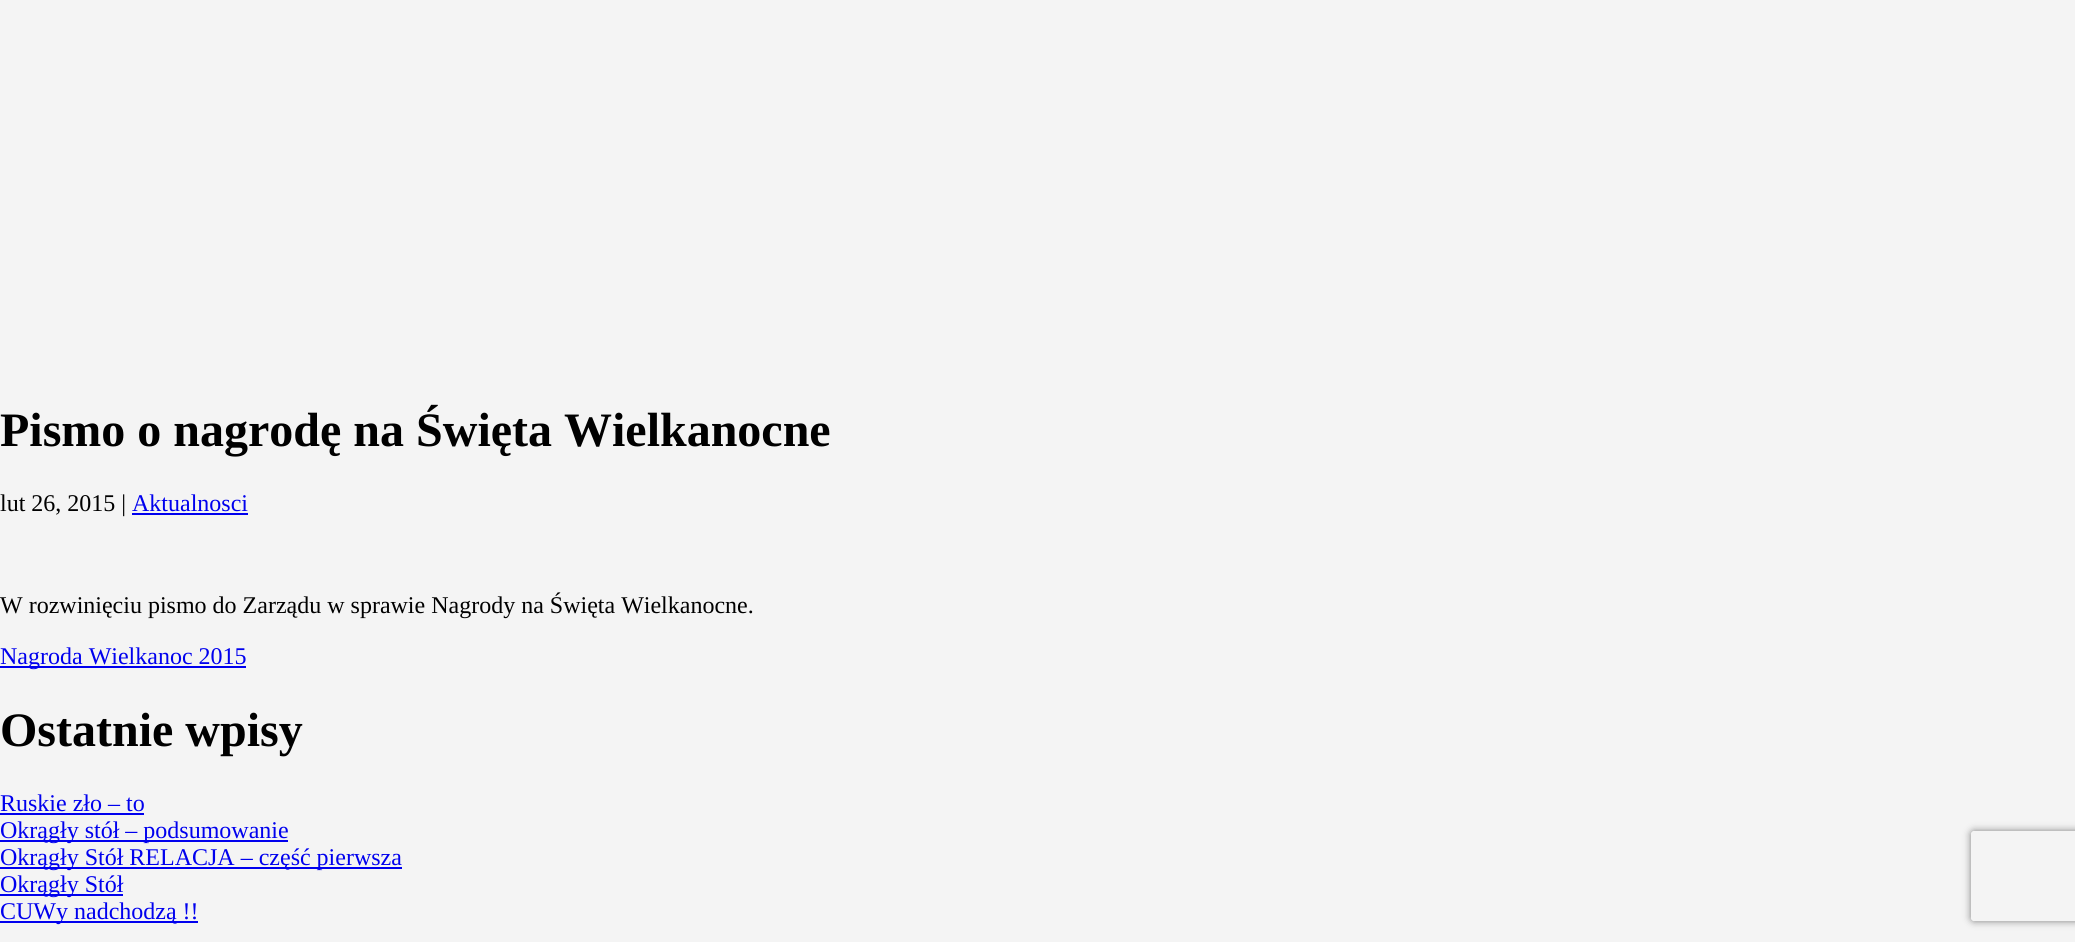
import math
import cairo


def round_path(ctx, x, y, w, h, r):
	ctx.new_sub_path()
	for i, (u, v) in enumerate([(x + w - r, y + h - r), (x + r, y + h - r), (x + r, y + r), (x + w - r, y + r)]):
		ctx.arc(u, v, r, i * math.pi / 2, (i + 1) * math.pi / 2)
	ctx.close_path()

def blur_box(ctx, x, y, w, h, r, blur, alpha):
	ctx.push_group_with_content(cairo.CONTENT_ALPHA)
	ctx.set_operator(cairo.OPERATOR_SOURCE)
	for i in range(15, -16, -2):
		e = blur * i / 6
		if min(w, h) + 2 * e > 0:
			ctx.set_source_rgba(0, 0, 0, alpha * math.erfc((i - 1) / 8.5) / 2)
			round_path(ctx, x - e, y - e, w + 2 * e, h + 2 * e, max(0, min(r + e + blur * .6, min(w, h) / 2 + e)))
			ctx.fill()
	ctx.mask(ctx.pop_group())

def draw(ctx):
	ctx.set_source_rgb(0.957, 0.957, 0.957)
	ctx.paint()
	ctx.select_font_face('Liberation Serif', cairo.FONT_SLANT_NORMAL, cairo.FONT_WEIGHT_BOLD)
	ctx.set_font_size(48)
	ctx.set_source_rgb(0, 0, 0)
	ctx.move_to(0, 446)
	ctx.show_text('Pismo o nagrodę na Święta Wielkanocne')
	ctx.select_font_face('Liberation Serif')
	ctx.set_font_size(24)
	ctx.move_to(0, 511)
	ctx.show_text('lut 26, 2015 |')
	ctx.set_source_rgb(0, 0, 0.933)
	ctx.move_to(132, 511)
	ctx.show_text('Aktualnosci')
	ctx.rectangle(132, 513, 116, 2)
	ctx.fill()
	ctx.set_source_rgb(0, 0, 0)
	ctx.move_to(0, 613)
	ctx.show_text('W rozwinięciu pismo do Zarządu w sprawie Nagrody na Święta Wielkanocne.')
	ctx.set_source_rgb(0, 0, 0.933)
	ctx.rectangle(0, 666, 246, 2)
	ctx.fill()
	ctx.move_to(0, 664)
	ctx.show_text('Nagroda Wielkanoc 2015')
	ctx.select_font_face('Liberation Serif', cairo.FONT_SLANT_NORMAL, cairo.FONT_WEIGHT_BOLD)
	ctx.set_font_size(48)
	ctx.set_source_rgb(0, 0, 0)
	ctx.move_to(0, 746)
	ctx.show_text('Ostatnie wpisy')
	ctx.select_font_face('Liberation Serif')
	ctx.set_font_size(24)
	ctx.set_source_rgb(0, 0, 0.933)
	ctx.move_to(0, 811)
	ctx.show_text('Ruskie zło – to')
	ctx.rectangle(0, 813, 144, 2)
	ctx.fill()
	ctx.rectangle(0, 840, 288, 2)
	ctx.fill()
	ctx.move_to(0, 838)
	ctx.show_text('Okrągły stół – podsumowanie')
	ctx.rectangle(0, 867, 402, 2)
	ctx.fill()
	ctx.move_to(0, 865)
	ctx.show_text('Okrągły Stół RELACJA – część pierwsza')
	ctx.rectangle(0, 894, 123, 2)
	ctx.fill()
	ctx.move_to(0, 892)
	ctx.show_text('Okrągły Stół')
	ctx.rectangle(0, 921, 198, 2)
	ctx.fill()
	ctx.move_to(0, 919)
	ctx.show_text('CUWy nadchodzą !!')
	ctx.save()
	ctx.set_fill_rule(cairo.FILL_RULE_EVEN_ODD)
	ctx.new_path()
	ctx.move_to(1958, 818)
	ctx.line_to(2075, 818)
	ctx.line_to(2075, 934)
	ctx.line_to(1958, 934)
	ctx.close_path()
	ctx.move_to(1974, 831)
	ctx.line_to(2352, 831)
	ctx.curve_to(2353.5, 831, 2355, 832.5, 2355, 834)
	ctx.line_to(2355, 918)
	ctx.curve_to(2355, 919.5, 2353.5, 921, 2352, 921)
	ctx.line_to(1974, 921)
	ctx.curve_to(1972.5, 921, 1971, 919.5, 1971, 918)
	ctx.line_to(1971, 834)
	ctx.curve_to(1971, 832.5, 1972.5, 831, 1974, 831)
	ctx.close_path()
	ctx.clip()
	ctx.set_source_rgb(0.502, 0.502, 0.502)
	blur_box(ctx, 1971, 831, 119, 90, 3, 4, 1)
	ctx.restore()


surface = cairo.ImageSurface(cairo.FORMAT_RGB24, 2075, 942)
ctx = cairo.Context(surface)
options = cairo.FontOptions()
options.set_hint_metrics(cairo.HINT_METRICS_OFF)
options.set_hint_style(cairo.HINT_STYLE_NONE)
ctx.set_font_options(options)
ctx.set_miter_limit(4)
draw(ctx)
surface.write_to_png('image.png')
